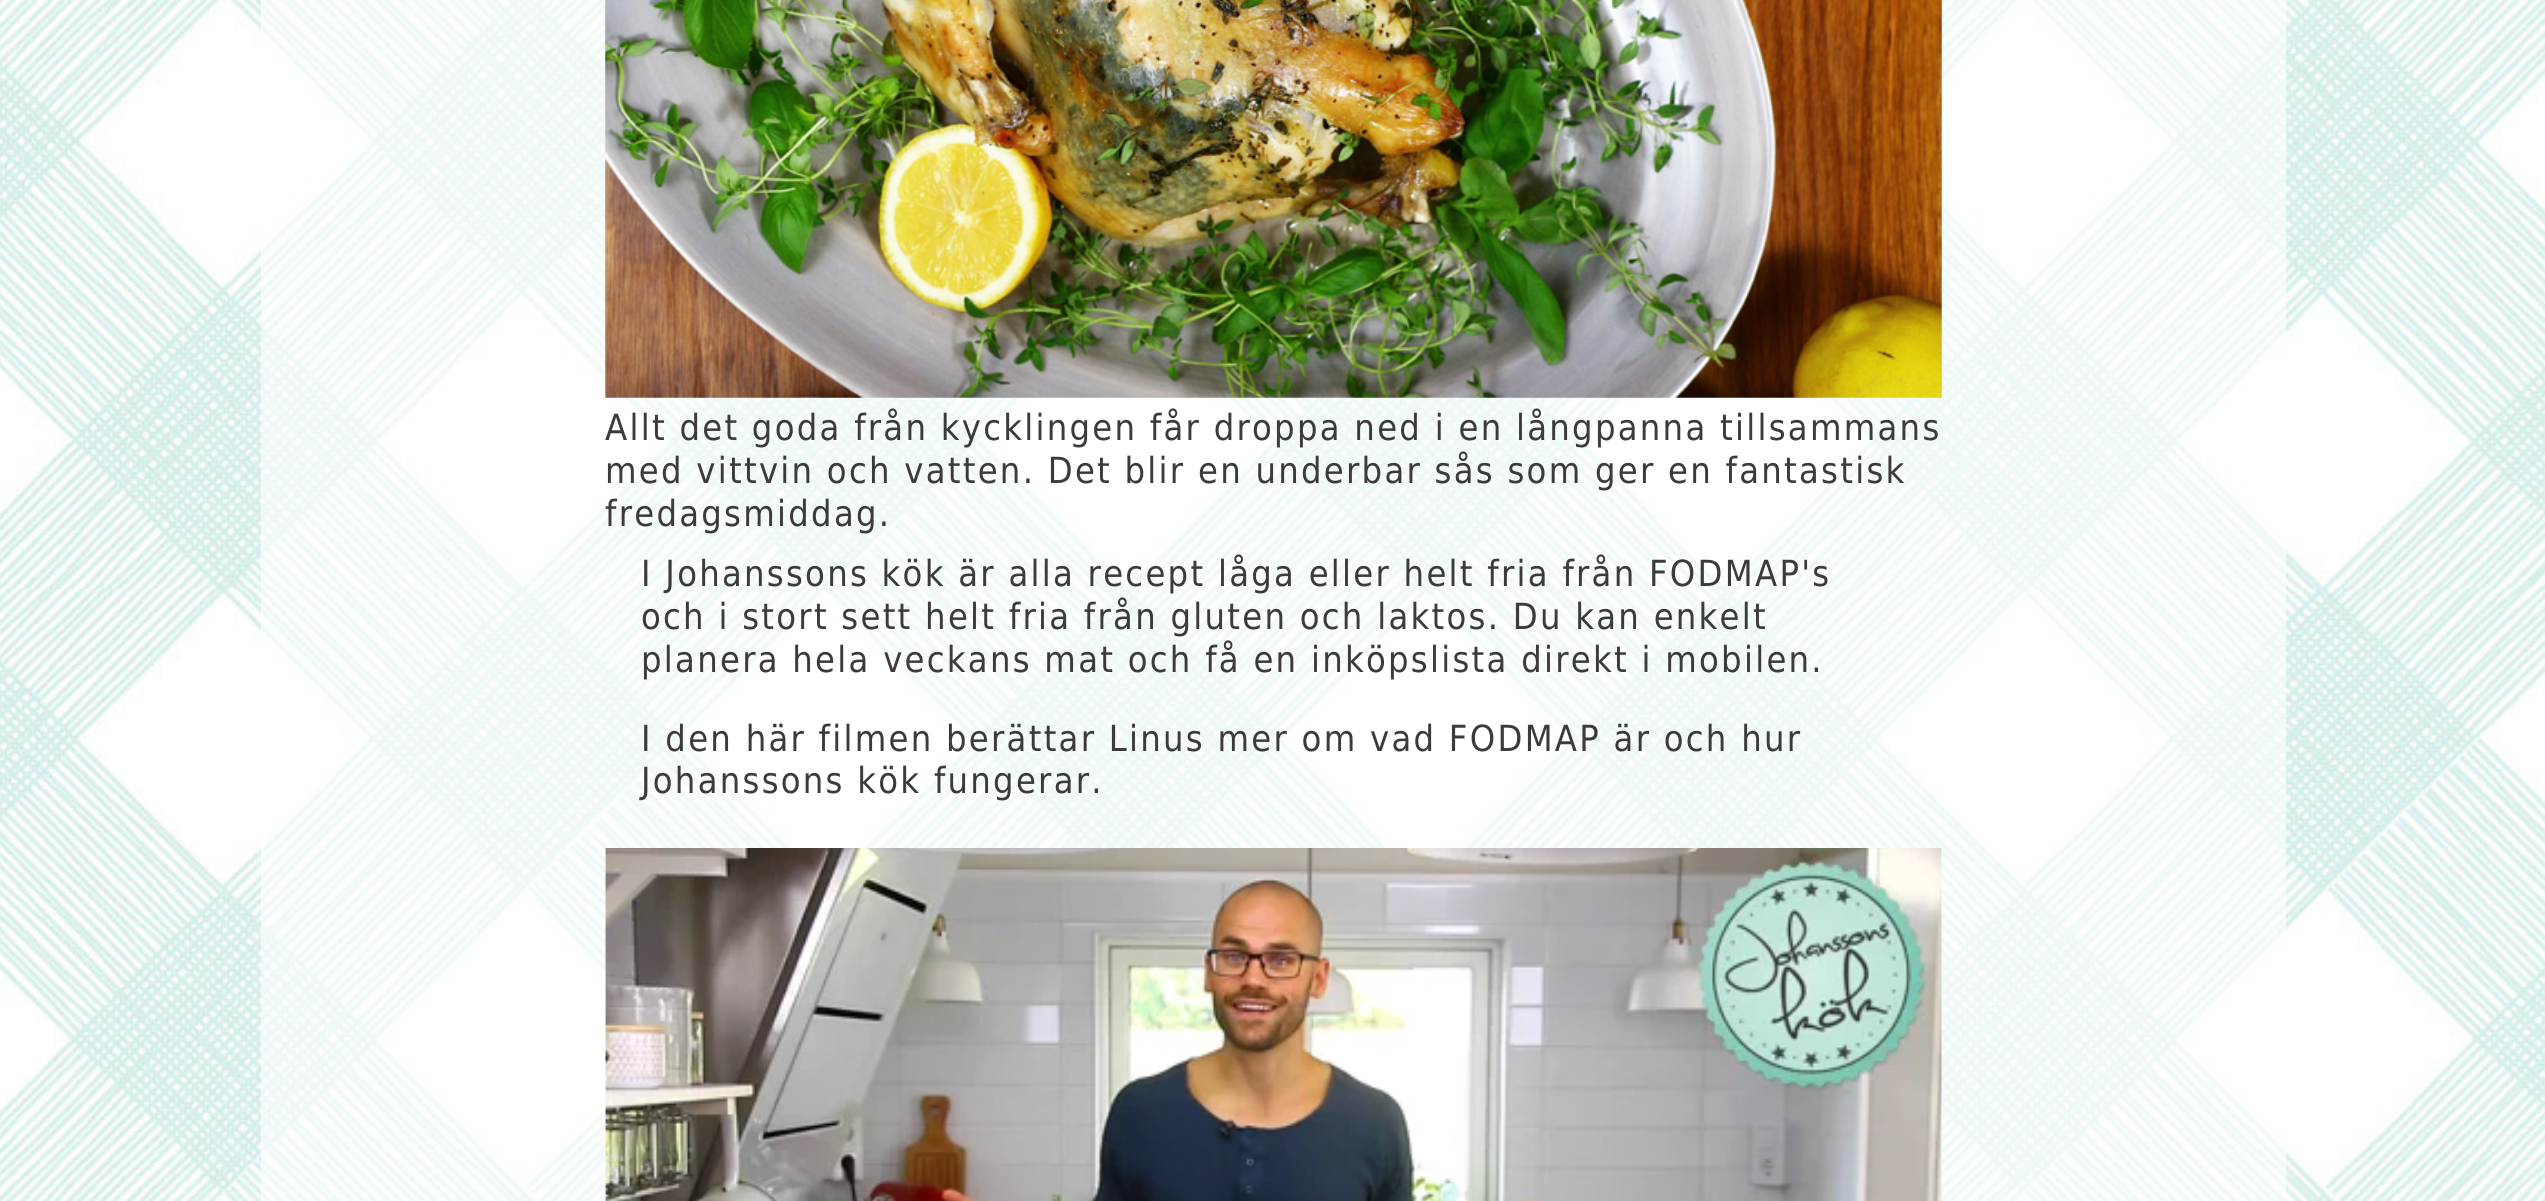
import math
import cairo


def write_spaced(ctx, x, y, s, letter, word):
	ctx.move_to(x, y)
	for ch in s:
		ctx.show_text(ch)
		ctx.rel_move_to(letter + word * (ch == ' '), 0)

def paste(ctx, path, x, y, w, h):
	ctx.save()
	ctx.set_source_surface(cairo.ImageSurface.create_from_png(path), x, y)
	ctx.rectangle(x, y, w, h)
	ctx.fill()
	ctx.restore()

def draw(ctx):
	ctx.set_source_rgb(1, 1, 1)
	ctx.paint()
	paste(ctx, 'media/1.png', 0, 0, 2545, 1201)
	ctx.set_source_rgba(1, 1, 1, 0.62)
	ctx.rectangle(261, 0, 2025, 1201)
	ctx.fill()
	paste(ctx, 'media/2.png', 605, 0, 1337, 398)
	ctx.select_font_face('DejaVu Sans')
	ctx.set_font_size(36)
	ctx.set_source_rgb(0.235, 0.227, 0.239)
	for x, y, s in [
		(605, 440, 'Allt det goda från kycklingen får droppa ned i en långpanna tillsammans'),
		(605, 483, 'med vittvin och vatten. Det blir en underbar sås som ger en fantastisk'),
		(605, 526, 'fredagsmiddag.'),
		(641, 586, 'I Johanssons kök är alla recept låga eller helt fria från FODMAP\'s'),
		(641, 629, 'och i stort sett helt fria från gluten och laktos. Du kan enkelt'),
		(641, 672, 'planera hela veckans mat och få en inköpslista direkt i mobilen.'),
		(641, 751, 'I den här filmen berättar Linus mer om vad FODMAP är och hur'),
		(641, 793, 'Johanssons kök fungerar.'),
	]:
		write_spaced(ctx, x, y, s, 2.25, 0)
	paste(ctx, 'media/3.png', 605, 848, 1337, 353)


surface = cairo.ImageSurface(cairo.FORMAT_RGB24, 2545, 1201)
ctx = cairo.Context(surface)
options = cairo.FontOptions()
options.set_hint_metrics(cairo.HINT_METRICS_OFF)
options.set_hint_style(cairo.HINT_STYLE_NONE)
ctx.set_font_options(options)
ctx.set_miter_limit(4)
draw(ctx)
surface.write_to_png('image.png')
